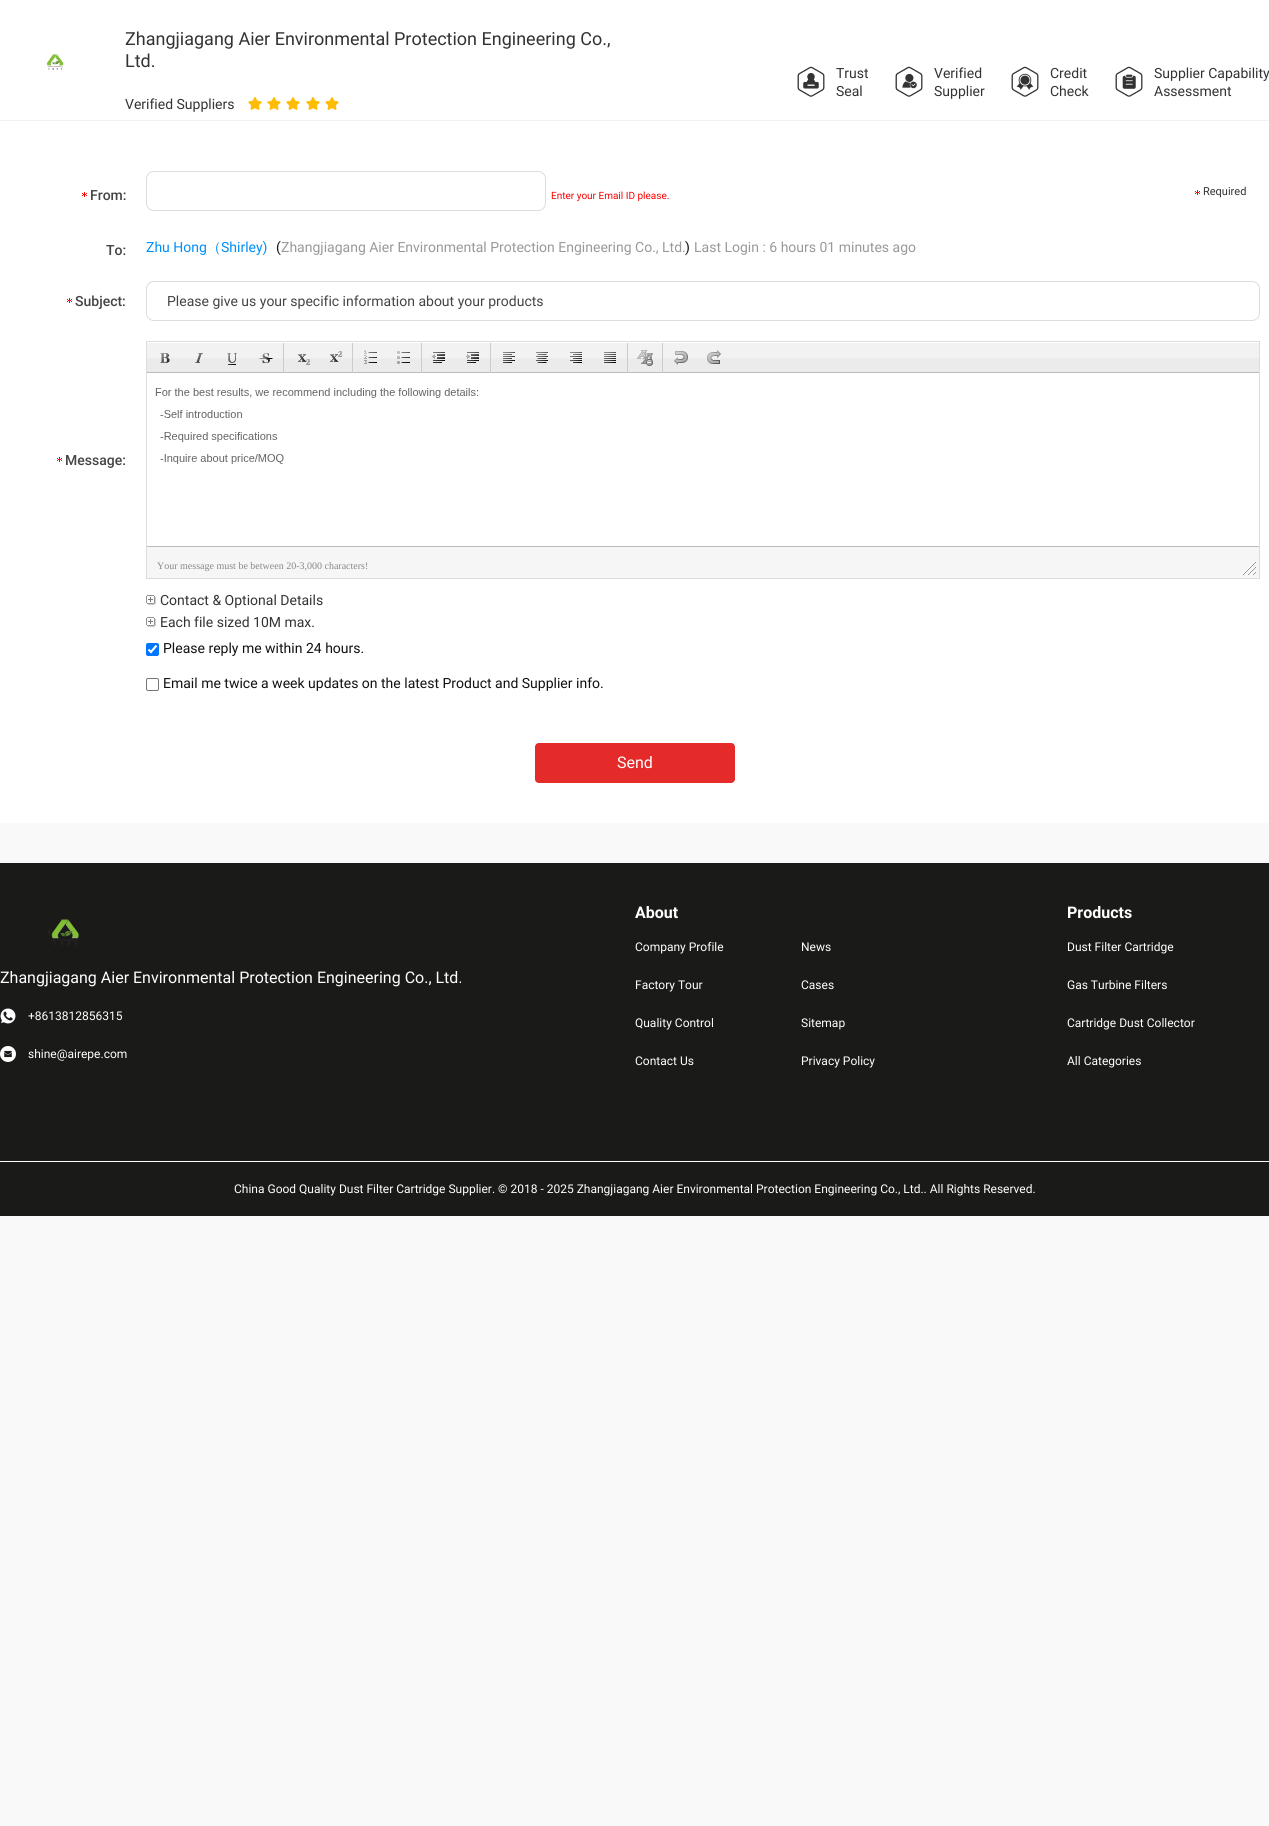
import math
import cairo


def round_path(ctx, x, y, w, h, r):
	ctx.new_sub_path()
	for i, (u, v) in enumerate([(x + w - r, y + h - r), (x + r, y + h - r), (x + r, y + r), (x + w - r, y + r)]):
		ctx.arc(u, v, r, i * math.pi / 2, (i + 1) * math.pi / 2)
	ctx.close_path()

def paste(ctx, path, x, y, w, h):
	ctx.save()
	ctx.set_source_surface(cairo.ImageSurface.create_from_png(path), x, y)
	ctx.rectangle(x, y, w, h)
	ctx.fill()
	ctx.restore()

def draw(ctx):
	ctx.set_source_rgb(0.973, 0.973, 0.973)
	ctx.paint()
	ctx.set_source_rgb(1, 1, 1)
	ctx.rectangle(0, 0, 1269, 120)
	ctx.fill()
	ctx.set_source_rgb(0.941, 0.945, 0.949)
	ctx.rectangle(0, 120, 1269, 1)
	ctx.fill()
	paste(ctx, 'media/1.png', 45, 54, 19, 16)
	ctx.select_font_face('Roboto')
	ctx.set_font_size(18)
	ctx.set_source_rgb(0.2, 0.2, 0.2)
	ctx.move_to(125, 45)
	ctx.show_text('Zhangjiagang Aier Environmental Protection Engineering Co.,')
	ctx.move_to(125, 67)
	ctx.show_text('Ltd.')
	ctx.set_font_size(14)
	ctx.move_to(125, 109)
	ctx.show_text('Verified Suppliers')
	paste(ctx, 'media/2.png', 248, 97, 14, 13)
	paste(ctx, 'media/2.png', 267, 97, 14, 13)
	paste(ctx, 'media/2.png', 286, 97, 14, 13)
	paste(ctx, 'media/2.png', 306, 97, 14, 13)
	paste(ctx, 'media/2.png', 325, 97, 14, 13)
	paste(ctx, 'media/3.png', 797, 66, 28, 31)
	ctx.move_to(836, 78)
	ctx.show_text('Trust')
	ctx.move_to(836, 96)
	ctx.show_text('Seal')
	paste(ctx, 'media/4.png', 895, 66, 28, 31)
	ctx.move_to(934, 78)
	ctx.show_text('Verified')
	ctx.move_to(934, 96)
	ctx.show_text('Supplier')
	paste(ctx, 'media/5.png', 1011, 66, 28, 31)
	ctx.move_to(1050, 78)
	ctx.show_text('Credit')
	ctx.move_to(1050, 96)
	ctx.show_text('Check')
	paste(ctx, 'media/6.png', 1115, 66, 28, 31)
	ctx.move_to(1154, 78)
	ctx.show_text('Supplier Capability')
	ctx.move_to(1154, 96)
	ctx.show_text('Assessment')
	ctx.set_source_rgb(1, 1, 1)
	ctx.rectangle(0, 121, 1269, 702)
	ctx.fill()
	paste(ctx, 'media/7.png', 82, 192, 5, 5)
	ctx.select_font_face('Roboto Medium')
	ctx.set_source_rgb(0.267, 0.267, 0.267)
	ctx.move_to(90, 200)
	ctx.show_text('From:')
	round_path(ctx, 146.5, 171.5, 399, 39, 7.5)
	ctx.set_source_rgb(0.867, 0.867, 0.867)
	ctx.set_line_width(1)
	ctx.stroke()
	ctx.select_font_face('Roboto')
	ctx.set_font_size(10)
	ctx.set_source_rgb(1, 0, 0)
	ctx.move_to(551, 199)
	ctx.show_text('Enter your Email ID please.')
	paste(ctx, 'media/7.png', 1195, 190, 5, 5)
	ctx.set_font_size(11)
	ctx.set_source_rgb(0.2, 0.2, 0.2)
	ctx.move_to(1203, 195)
	ctx.show_text('Required')
	ctx.select_font_face('Roboto Medium')
	ctx.set_font_size(14)
	ctx.set_source_rgb(0.267, 0.267, 0.267)
	ctx.move_to(106, 255)
	ctx.show_text('To:')
	ctx.select_font_face('Roboto')
	ctx.set_source_rgb(0, 0.557, 0.965)
	ctx.move_to(146, 252)
	ctx.show_text('Zhu Hong')
	ctx.select_font_face('WenQuanYi Zen Hei Medium')
	ctx.move_to(207, 252)
	ctx.show_text('（')
	ctx.select_font_face('Roboto')
	ctx.move_to(221, 252)
	ctx.show_text('Shirley)')
	ctx.set_source_rgb(0.067, 0.067, 0.067)
	ctx.move_to(276, 252)
	ctx.show_text('(')
	ctx.set_source_rgb(0.6, 0.6, 0.6)
	ctx.move_to(281, 252)
	ctx.show_text('Zhangjiagang Aier Environmental Protection Engineering Co., Ltd.')
	ctx.set_source_rgb(0.067, 0.067, 0.067)
	ctx.move_to(685, 252)
	ctx.show_text(')')
	ctx.set_source_rgb(0.6, 0.6, 0.6)
	ctx.move_to(694, 252)
	ctx.show_text('Last Login : 6 hours 01 minutes ago')
	paste(ctx, 'media/7.png', 67, 298, 5, 5)
	ctx.select_font_face('Roboto Medium')
	ctx.set_source_rgb(0.267, 0.267, 0.267)
	ctx.move_to(75, 306)
	ctx.show_text('Subject:')
	round_path(ctx, 146.5, 281.5, 1113, 39, 7.5)
	ctx.set_source_rgb(0.867, 0.867, 0.867)
	ctx.stroke()
	ctx.select_font_face('Roboto')
	ctx.set_source_rgb(0.267, 0.267, 0.267)
	ctx.move_to(167, 306)
	ctx.show_text('Please give us your specific information about your products')
	paste(ctx, 'media/7.png', 57, 457, 5, 5)
	ctx.select_font_face('Roboto Medium')
	ctx.move_to(65, 465)
	ctx.show_text('Message:')
	ctx.rectangle(146.5, 341.5, 1113, 237)
	ctx.set_source_rgb(0.867, 0.867, 0.867)
	ctx.stroke()
	paste(ctx, 'media/8.png', 147, 343, 1112, 29)
	ctx.set_source_rgb(0.733, 0.733, 0.733)
	ctx.rectangle(147, 372, 1112, 1)
	ctx.fill()
	paste(ctx, 'media/9.png', 160, 353, 10, 10)
	paste(ctx, 'media/10.png', 195, 353, 8, 10)
	paste(ctx, 'media/11.png', 227, 353, 10, 12)
	paste(ctx, 'media/12.png', 259, 353, 14, 10)
	ctx.set_source_rgb(0.8, 0.8, 0.8)
	ctx.rectangle(283, 343, 1, 30)
	ctx.fill()
	paste(ctx, 'media/13.png', 298, 354, 13, 11)
	paste(ctx, 'media/14.png', 330, 351, 13, 11)
	ctx.rectangle(352, 343, 1, 30)
	ctx.fill()
	paste(ctx, 'media/15.png', 364, 350, 13, 14)
	paste(ctx, 'media/16.png', 397, 351, 13, 13)
	ctx.rectangle(421, 343, 1, 30)
	ctx.fill()
	paste(ctx, 'media/17.png', 431, 352, 14, 11)
	paste(ctx, 'media/18.png', 466, 352, 13, 11)
	ctx.rectangle(490, 343, 1, 30)
	ctx.fill()
	paste(ctx, 'media/19.png', 503, 352, 12, 11)
	paste(ctx, 'media/20.png', 536, 352, 12, 11)
	paste(ctx, 'media/21.png', 570, 352, 12, 11)
	paste(ctx, 'media/22.png', 604, 352, 12, 11)
	ctx.rectangle(627, 343, 1, 30)
	ctx.fill()
	paste(ctx, 'media/23.png', 637, 350, 16, 16)
	ctx.rectangle(662, 343, 1, 30)
	ctx.fill()
	paste(ctx, 'media/24.png', 674, 351, 14, 14)
	paste(ctx, 'media/25.png', 707, 350, 14, 14)
	paste(ctx, 'media/26.png', 155, 388, 324, 76)
	ctx.set_source_rgb(0.961, 0.961, 0.961)
	ctx.rectangle(147, 547, 1112, 31)
	ctx.fill()
	ctx.set_source_rgb(0.733, 0.733, 0.733)
	ctx.rectangle(147, 546, 1112, 1)
	ctx.fill()
	ctx.select_font_face('Liberation Serif')
	ctx.set_font_size(10)
	ctx.set_source_rgb(0.533, 0.533, 0.533)
	ctx.move_to(157, 569)
	ctx.show_text('Your message must be between 20-3,000 characters!')
	paste(ctx, 'media/27.png', 1242, 562, 14, 13)
	paste(ctx, 'media/28.png', 146, 595, 10, 10)
	ctx.select_font_face('Roboto')
	ctx.set_font_size(14)
	ctx.set_source_rgb(0.2, 0.2, 0.2)
	ctx.move_to(160, 605)
	ctx.show_text('Contact & Optional Details')
	paste(ctx, 'media/28.png', 146, 617, 10, 10)
	ctx.move_to(160, 627)
	ctx.show_text('Each file sized 10M max.')
	ctx.set_source_rgb(0, 0.459, 1)
	round_path(ctx, 146, 643, 13, 13, 2)
	ctx.fill()
	ctx.new_path()
	ctx.move_to(148.5, 649.5)
	ctx.line_to(151, 652)
	ctx.line_to(156.5, 645.5)
	ctx.set_source_rgb(1, 1, 1)
	ctx.set_line_width(2.1)
	ctx.stroke()
	ctx.set_source_rgb(0.067, 0.067, 0.067)
	ctx.move_to(163, 653)
	ctx.show_text('Please reply me within 24 hours.')
	round_path(ctx, 146.5, 678.5, 12, 12, 1.5)
	ctx.set_source_rgb(0.463, 0.463, 0.463)
	ctx.set_line_width(1)
	ctx.stroke()
	ctx.set_source_rgb(0.067, 0.067, 0.067)
	ctx.move_to(163, 688)
	ctx.show_text('Email me twice a week updates on the latest Product and Supplier info.')
	ctx.set_source_rgb(0.898, 0.165, 0.165)
	round_path(ctx, 535, 743, 200, 40, 4)
	ctx.fill()
	ctx.set_font_size(16)
	ctx.set_source_rgb(1, 1, 1)
	ctx.move_to(617, 768)
	ctx.show_text('Send')
	ctx.set_source_rgb(0.102, 0.102, 0.098)
	ctx.rectangle(0, 863, 1269, 353)
	ctx.fill()
	paste(ctx, 'media/29.png', 48, 919, 31, 26)
	ctx.set_source_rgb(1, 1, 1)
	ctx.move_to(0, 983)
	ctx.show_text('Zhangjiagang Aier Environmental Protection Engineering Co., Ltd.')
	paste(ctx, 'media/30.png', 0, 1008, 16, 16)
	ctx.set_font_size(12)
	ctx.move_to(28, 1020)
	ctx.show_text('+8613812856315')
	paste(ctx, 'media/31.png', 0, 1046, 16, 16)
	ctx.move_to(28, 1058)
	ctx.show_text('shine@airepe.com')
	ctx.select_font_face('Roboto', cairo.FONT_SLANT_NORMAL, cairo.FONT_WEIGHT_BOLD)
	ctx.set_font_size(16)
	ctx.move_to(635, 918)
	ctx.show_text('About')
	ctx.select_font_face('Roboto')
	ctx.set_font_size(12)
	for x, y, s in [
		(635, 951, 'Company Profile'),
		(635, 989, 'Factory Tour'),
		(635, 1027, 'Quality Control'),
		(635, 1065, 'Contact Us'),
		(801, 951, 'News'),
		(801, 989, 'Cases'),
		(801, 1027, 'Sitemap'),
		(801, 1065, 'Privacy Policy'),
	]:
		ctx.move_to(x, y)
		ctx.show_text(s)
	ctx.select_font_face('Roboto', cairo.FONT_SLANT_NORMAL, cairo.FONT_WEIGHT_BOLD)
	ctx.set_font_size(16)
	ctx.move_to(1067, 918)
	ctx.show_text('Products')
	ctx.select_font_face('Roboto')
	ctx.set_font_size(12)
	for x, y, s in [
		(1067, 951, 'Dust Filter Cartridge'),
		(1067, 989, 'Gas Turbine Filters'),
		(1067, 1027, 'Cartridge Dust Collector'),
		(1067, 1065, 'All Categories'),
	]:
		ctx.move_to(x, y)
		ctx.show_text(s)
	ctx.rectangle(0, 1161, 1269, 1)
	ctx.fill()
	ctx.move_to(234, 1193)
	ctx.show_text('China Good Quality Dust Filter Cartridge Supplier. © 2018 - 2025 Zhangjiagang Aier Environmental Protection Engineering Co., Ltd.. All Rights Reserved.')


surface = cairo.ImageSurface(cairo.FORMAT_RGB24, 1269, 1826)
ctx = cairo.Context(surface)
options = cairo.FontOptions()
options.set_hint_metrics(cairo.HINT_METRICS_OFF)
options.set_hint_style(cairo.HINT_STYLE_NONE)
ctx.set_font_options(options)
ctx.set_miter_limit(4)
draw(ctx)
surface.write_to_png('image.png')
